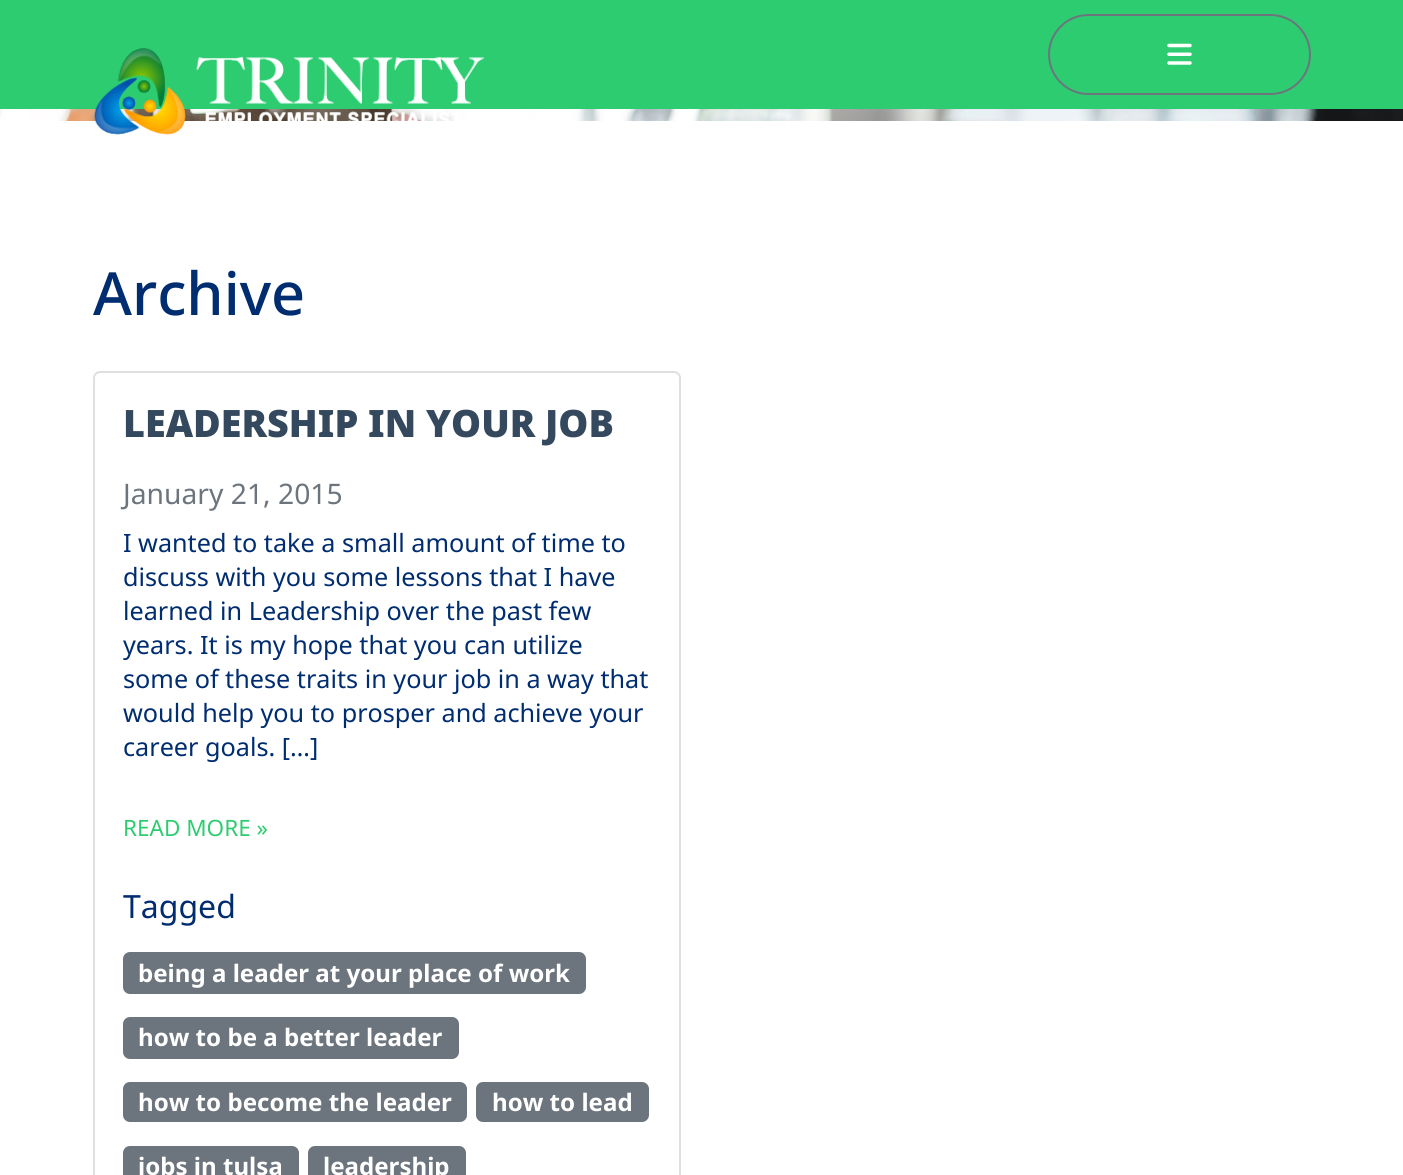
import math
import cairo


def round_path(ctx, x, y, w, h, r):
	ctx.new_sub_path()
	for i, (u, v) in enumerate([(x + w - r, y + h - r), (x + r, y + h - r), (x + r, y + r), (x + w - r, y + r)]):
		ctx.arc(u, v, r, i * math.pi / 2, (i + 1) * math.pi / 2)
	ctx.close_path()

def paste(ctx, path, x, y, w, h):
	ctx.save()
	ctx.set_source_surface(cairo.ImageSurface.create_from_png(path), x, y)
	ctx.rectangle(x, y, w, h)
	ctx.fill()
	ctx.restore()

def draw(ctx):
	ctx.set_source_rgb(1, 1, 1)
	ctx.paint()
	paste(ctx, 'media/1.png', 0, 109, 1403, 12)
	ctx.set_source_rgb(0.18, 0.8, 0.443)
	ctx.rectangle(0, 0, 1403, 109)
	ctx.fill()
	paste(ctx, 'media/2.png', 94, 48, 390, 87)
	paste(ctx, 'media/3.png', 94, 48, 390, 87)
	round_path(ctx, 1049, 15, 261, 79, 39.5)
	ctx.set_source_rgb(0.424, 0.459, 0.49)
	ctx.stroke()
	paste(ctx, 'media/4.png', 1167, 43, 25, 22)
	ctx.select_font_face('Noto Sans Medium')
	ctx.set_font_size(59.5)
	ctx.set_source_rgb(0, 0.173, 0.439)
	ctx.move_to(93, 315)
	ctx.show_text('Archive')
	round_path(ctx, 94, 372, 586, 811, 6)
	ctx.set_source_rgb(0.875, 0.875, 0.875)
	ctx.stroke()
	ctx.select_font_face('Noto Sans Black')
	ctx.set_font_size(37.75)
	ctx.set_source_rgb(0.204, 0.286, 0.369)
	ctx.move_to(123, 437)
	ctx.show_text('LEADERSHIP IN YOUR JOB')
	ctx.select_font_face('Noto Sans')
	ctx.set_font_size(28.25)
	ctx.set_source_rgb(0.424, 0.459, 0.49)
	ctx.move_to(123, 504)
	ctx.show_text('January 21, 2015')
	ctx.set_font_size(25.2)
	ctx.set_source_rgb(0, 0.173, 0.439)
	for x, y, s in [
		(123, 552, 'I wanted to take a small amount of time to'),
		(123, 586, 'discuss with you some lessons that I have'),
		(123, 620, 'learned in Leadership over the past few'),
		(123, 654, 'years. It is my hope that you can utilize'),
		(123, 688, 'some of these traits in your job in a way that'),
		(123, 722, 'would help you to prosper and achieve your'),
		(123, 756, 'career goals. […]'),
	]:
		ctx.move_to(x, y)
		ctx.show_text(s)
	ctx.set_font_size(22.5)
	ctx.set_source_rgb(0.18, 0.8, 0.443)
	ctx.move_to(123, 836)
	ctx.show_text('READ MORE »')
	ctx.set_font_size(32)
	ctx.set_source_rgb(0, 0.173, 0.439)
	ctx.move_to(123, 918)
	ctx.show_text('Tagged')
	ctx.set_source_rgb(0.424, 0.459, 0.49)
	round_path(ctx, 123, 952, 463, 42, 7)
	ctx.fill()
	ctx.select_font_face('Noto Sans', cairo.FONT_SLANT_NORMAL, cairo.FONT_WEIGHT_BOLD)
	ctx.set_font_size(24.1)
	ctx.set_source_rgb(1, 1, 1)
	ctx.move_to(138, 982)
	ctx.show_text('being a leader at your place of work')
	ctx.set_source_rgb(0.424, 0.459, 0.49)
	round_path(ctx, 123, 1017, 336, 42, 7)
	ctx.fill()
	ctx.set_source_rgb(1, 1, 1)
	ctx.move_to(138, 1046)
	ctx.show_text('how to be a better leader')
	ctx.set_source_rgb(0.424, 0.459, 0.49)
	round_path(ctx, 123, 1082, 344, 40, 7)
	ctx.fill()
	ctx.set_source_rgb(1, 1, 1)
	ctx.move_to(138, 1111)
	ctx.show_text('how to become the leader')
	ctx.set_source_rgb(0.424, 0.459, 0.49)
	round_path(ctx, 476, 1082, 173, 40, 7)
	ctx.fill()
	ctx.set_source_rgb(1, 1, 1)
	ctx.move_to(492, 1111)
	ctx.show_text('how to lead')
	ctx.set_source_rgb(0.424, 0.459, 0.49)
	round_path(ctx, 123, 1146, 176, 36, 7)
	ctx.fill()
	ctx.set_source_rgb(1, 1, 1)
	ctx.move_to(138, 1175)
	ctx.show_text('jobs in tulsa')
	ctx.set_source_rgb(0.424, 0.459, 0.49)
	round_path(ctx, 308, 1146, 158, 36, 7)
	ctx.fill()
	ctx.set_source_rgb(1, 1, 1)
	ctx.move_to(323, 1175)
	ctx.show_text('leadership')


surface = cairo.ImageSurface(cairo.FORMAT_RGB24, 1403, 1175)
ctx = cairo.Context(surface)
options = cairo.FontOptions()
options.set_hint_metrics(cairo.HINT_METRICS_OFF)
options.set_hint_style(cairo.HINT_STYLE_NONE)
ctx.set_font_options(options)
ctx.set_miter_limit(4)
draw(ctx)
surface.write_to_png('image.png')
